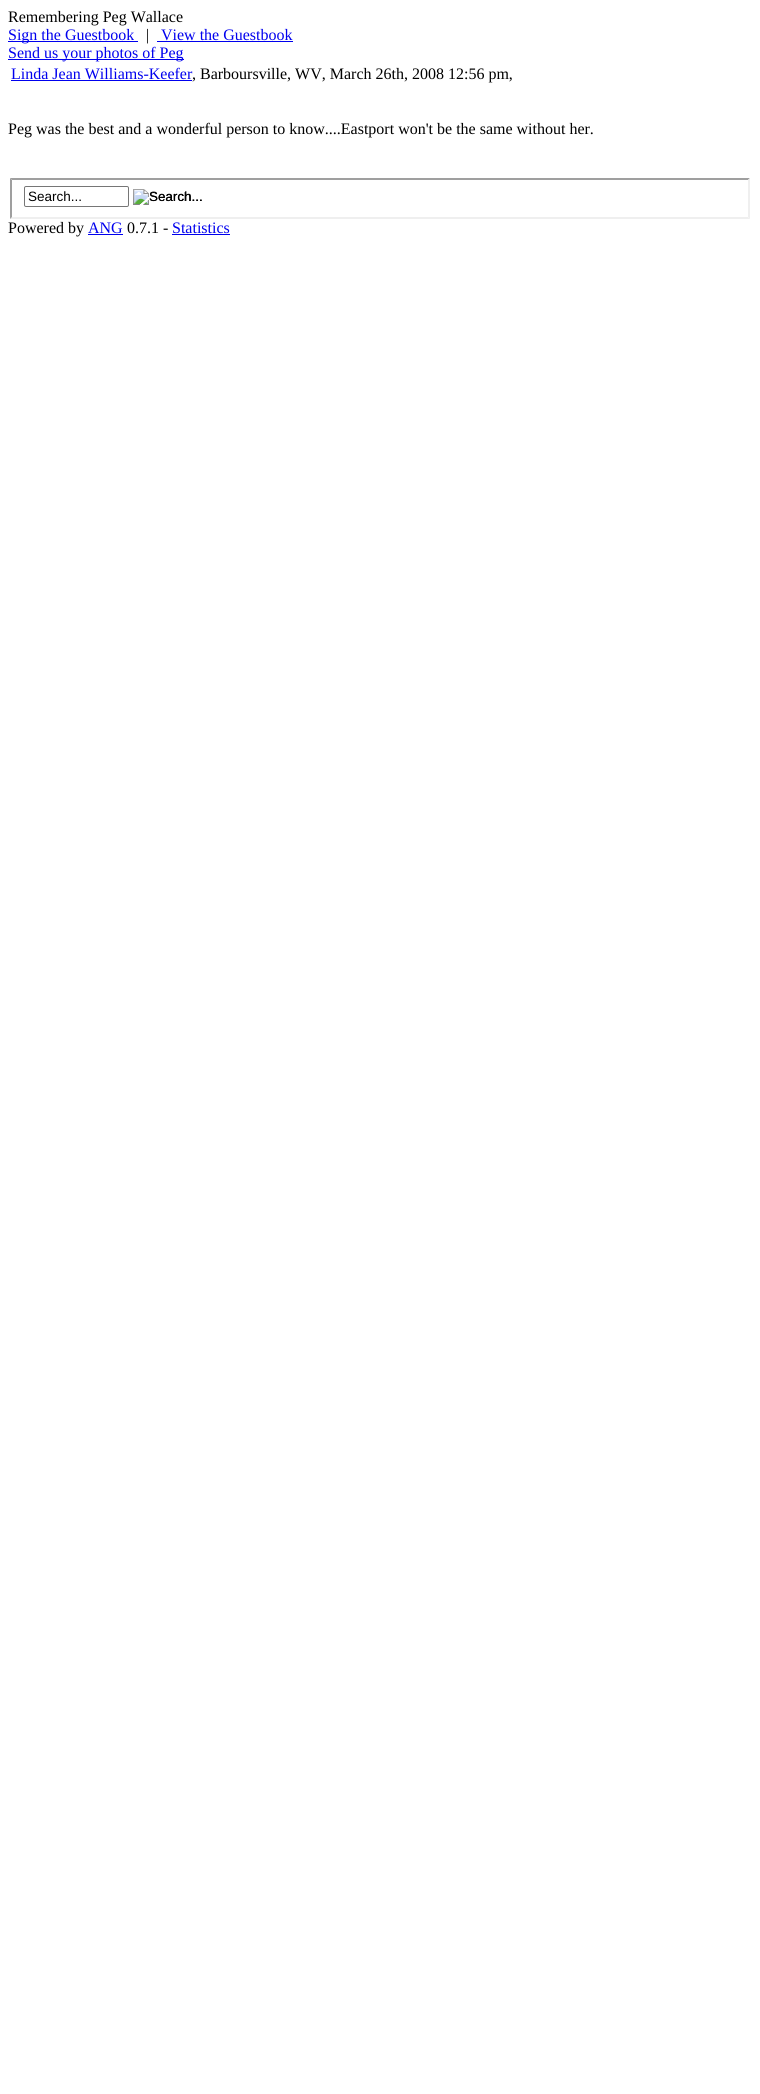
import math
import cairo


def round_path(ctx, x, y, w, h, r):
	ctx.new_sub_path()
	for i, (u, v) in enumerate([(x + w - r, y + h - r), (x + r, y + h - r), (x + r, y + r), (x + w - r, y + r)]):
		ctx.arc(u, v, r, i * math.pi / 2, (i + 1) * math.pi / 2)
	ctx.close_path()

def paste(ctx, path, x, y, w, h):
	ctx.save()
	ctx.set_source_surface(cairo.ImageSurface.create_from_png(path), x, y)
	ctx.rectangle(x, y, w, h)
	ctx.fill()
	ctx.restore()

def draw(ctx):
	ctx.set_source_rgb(1, 1, 1)
	ctx.paint()
	ctx.select_font_face('Liberation Serif')
	ctx.set_font_size(16)
	ctx.set_source_rgb(0, 0, 0)
	ctx.move_to(8, 22)
	ctx.show_text('Remembering Peg Wallace')
	ctx.set_source_rgb(0, 0, 0.933)
	ctx.rectangle(8, 41, 126, 1)
	ctx.fill()
	ctx.move_to(8, 40)
	ctx.show_text('Sign the Guestbook')
	ctx.rectangle(134, 41, 4, 1)
	ctx.fill()
	ctx.set_source_rgb(0, 0, 0)
	ctx.move_to(146, 40)
	ctx.show_text('|')
	ctx.set_source_rgb(0, 0, 0.933)
	ctx.move_to(161, 40)
	ctx.show_text('View the Guestbook')
	ctx.rectangle(157, 41, 136, 1)
	ctx.fill()
	ctx.rectangle(8, 59, 176, 1)
	ctx.fill()
	ctx.move_to(8, 58)
	ctx.show_text('Send us your photos of Peg')
	ctx.move_to(11, 79)
	ctx.show_text('Linda Jean Williams-Keefer')
	ctx.rectangle(11, 80, 181, 1)
	ctx.fill()
	ctx.set_source_rgb(0, 0, 0)
	ctx.move_to(192, 79)
	ctx.show_text(', Barboursville, WV, March 26th, 2008 12:56 pm,')
	ctx.move_to(8, 134)
	ctx.show_text('Peg was the best and a wonderful person to know....Eastport won\'t be the same without her.')
	ctx.set_source_rgb(0.624, 0.624, 0.624)
	ctx.new_path()
	ctx.move_to(10, 178)
	ctx.line_to(750, 178)
	ctx.line_to(748, 180)
	ctx.line_to(12, 180)
	ctx.close_path()
	ctx.fill()
	ctx.set_source_rgb(0.937, 0.937, 0.937)
	ctx.new_path()
	ctx.move_to(750, 178)
	ctx.line_to(750, 219)
	ctx.line_to(748, 217)
	ctx.line_to(748, 180)
	ctx.close_path()
	ctx.fill()
	ctx.new_path()
	ctx.move_to(750, 219)
	ctx.line_to(10, 219)
	ctx.line_to(12, 217)
	ctx.line_to(748, 217)
	ctx.close_path()
	ctx.fill()
	ctx.set_source_rgb(0.624, 0.624, 0.624)
	ctx.new_path()
	ctx.move_to(10, 219)
	ctx.line_to(10, 178)
	ctx.line_to(12, 180)
	ctx.line_to(12, 217)
	ctx.close_path()
	ctx.fill()
	round_path(ctx, 24.5, 186.5, 104, 20, 1.5)
	ctx.set_source_rgb(0.463, 0.463, 0.463)
	ctx.set_line_width(1)
	ctx.stroke()
	ctx.select_font_face('Liberation Sans')
	ctx.set_font_size(13.5)
	ctx.set_source_rgb(0, 0, 0)
	ctx.move_to(28, 201)
	ctx.show_text('Search...')
	paste(ctx, 'media/1.png', 133, 189, 69, 16)
	ctx.move_to(149, 201)
	ctx.show_text('Search...')
	ctx.select_font_face('Liberation Serif')
	ctx.set_font_size(16)
	ctx.move_to(8, 233)
	ctx.show_text('Powered by')
	ctx.set_source_rgb(0, 0, 0.933)
	ctx.move_to(88, 233)
	ctx.show_text('ANG')
	ctx.rectangle(88, 234, 35, 1)
	ctx.fill()
	ctx.set_source_rgb(0, 0, 0)
	ctx.move_to(127, 233)
	ctx.show_text('0.7.1 -')
	ctx.set_source_rgb(0, 0, 0.933)
	ctx.move_to(172, 233)
	ctx.show_text('Statistics')
	ctx.rectangle(172, 234, 58, 1)
	ctx.fill()


surface = cairo.ImageSurface(cairo.FORMAT_RGB24, 760, 2094)
ctx = cairo.Context(surface)
options = cairo.FontOptions()
options.set_hint_metrics(cairo.HINT_METRICS_OFF)
options.set_hint_style(cairo.HINT_STYLE_NONE)
ctx.set_font_options(options)
ctx.set_miter_limit(4)
draw(ctx)
surface.write_to_png('image.png')
